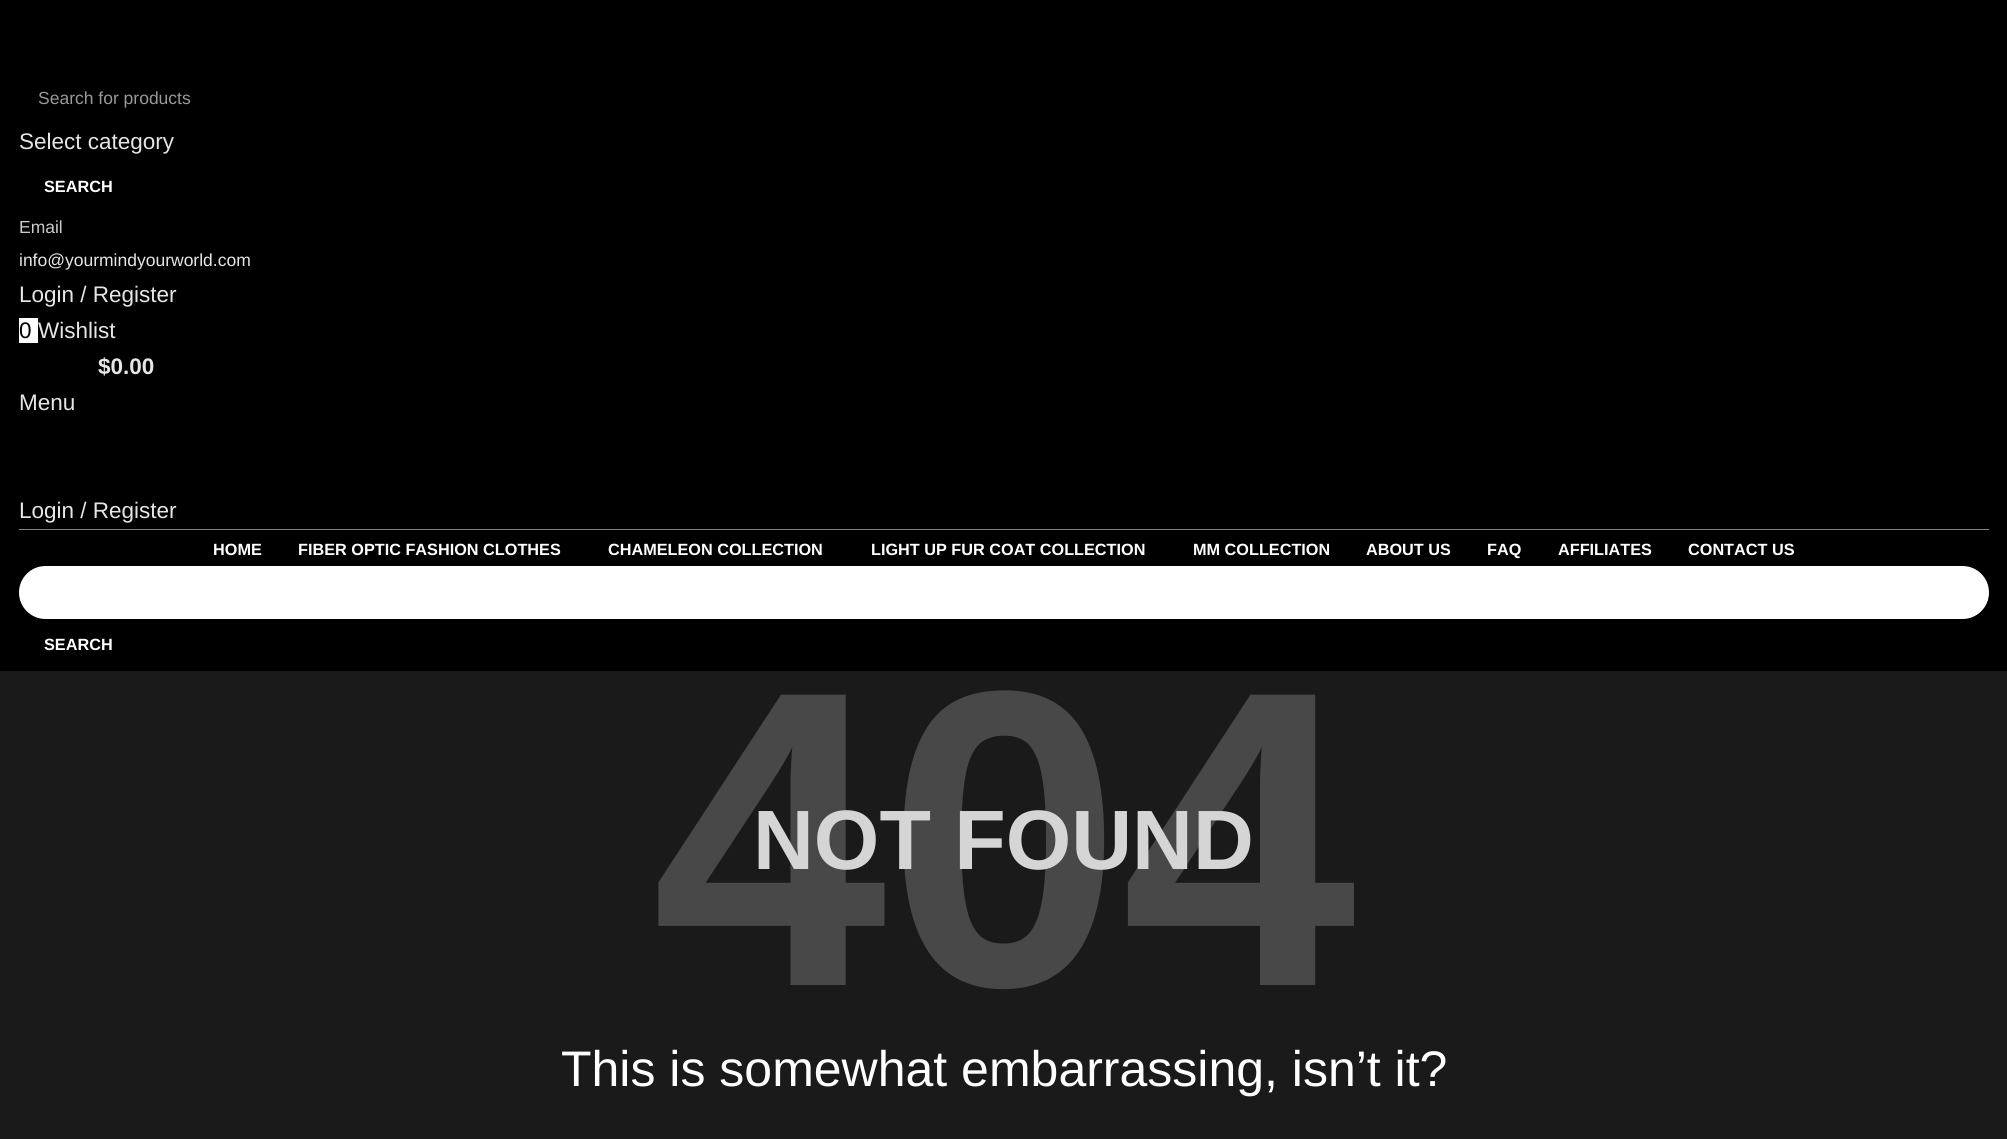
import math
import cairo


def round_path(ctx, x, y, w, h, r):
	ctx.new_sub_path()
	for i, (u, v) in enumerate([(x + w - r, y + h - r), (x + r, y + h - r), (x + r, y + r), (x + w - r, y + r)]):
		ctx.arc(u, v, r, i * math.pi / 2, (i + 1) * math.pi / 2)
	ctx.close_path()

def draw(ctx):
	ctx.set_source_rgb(0.102, 0.102, 0.102)
	ctx.paint()
	ctx.set_source_rgb(0, 0, 0)
	ctx.rectangle(0, 0, 2007, 671)
	ctx.fill()
	ctx.set_source_rgb(0.502, 0.502, 0.502)
	ctx.rectangle(19, 529, 1970, 1)
	ctx.fill()
	ctx.select_font_face('Liberation Sans')
	ctx.set_font_size(17.5)
	ctx.set_source_rgb(0.6, 0.6, 0.6)
	ctx.move_to(38, 104)
	ctx.show_text('Search for products')
	ctx.set_font_size(22.5)
	ctx.set_source_rgb(0.902, 0.902, 0.902)
	ctx.move_to(19, 149)
	ctx.show_text('Select category')
	ctx.select_font_face('Liberation Sans', cairo.FONT_SLANT_NORMAL, cairo.FONT_WEIGHT_BOLD)
	ctx.set_font_size(16.25)
	ctx.set_source_rgb(1, 1, 1)
	ctx.move_to(44, 192)
	ctx.show_text('SEARCH')
	ctx.select_font_face('Liberation Sans')
	ctx.set_font_size(17.5)
	ctx.set_source_rgb(0.8, 0.8, 0.8)
	ctx.move_to(19, 233)
	ctx.show_text('Email')
	ctx.set_source_rgb(0.902, 0.902, 0.902)
	ctx.move_to(19, 266)
	ctx.show_text('info@yourmindyourworld.com')
	ctx.set_font_size(22.5)
	ctx.move_to(19, 302)
	ctx.show_text('Login / Register')
	ctx.set_source_rgb(1, 1, 1)
	ctx.rectangle(19, 318, 19, 25)
	ctx.fill()
	ctx.set_source_rgb(0, 0, 0)
	ctx.move_to(19, 338)
	ctx.show_text('0')
	ctx.set_source_rgb(0.902, 0.902, 0.902)
	ctx.move_to(38, 338)
	ctx.show_text('Wishlist')
	ctx.select_font_face('Liberation Sans', cairo.FONT_SLANT_NORMAL, cairo.FONT_WEIGHT_BOLD)
	ctx.move_to(98, 374)
	ctx.show_text('$0.00')
	ctx.select_font_face('Liberation Sans')
	ctx.move_to(19, 410)
	ctx.show_text('Menu')
	ctx.move_to(19, 518)
	ctx.show_text('Login / Register')
	ctx.select_font_face('Liberation Sans', cairo.FONT_SLANT_NORMAL, cairo.FONT_WEIGHT_BOLD)
	ctx.set_font_size(16.25)
	ctx.set_source_rgb(1, 1, 1)
	for x, y, s in [
		(213, 555, 'HOME'),
		(298, 555, 'FIBER OPTIC FASHION CLOTHES'),
		(608, 555, 'CHAMELEON COLLECTION'),
		(871, 555, 'LIGHT UP FUR COAT COLLECTION'),
		(1193, 555, 'MM COLLECTION'),
		(1366, 555, 'ABOUT US'),
		(1487, 555, 'FAQ'),
		(1558, 555, 'AFFILIATES'),
		(1688, 555, 'CONTACT US'),
	]:
		ctx.move_to(x, y)
		ctx.show_text(s)
	round_path(ctx, 19, 566, 1970, 53, 26.5)
	ctx.fill()
	ctx.move_to(44, 650)
	ctx.show_text('SEARCH')
	ctx.set_font_size(422)
	ctx.set_source_rgb(0.282, 0.282, 0.282)
	ctx.move_to(652, 985)
	ctx.show_text('404')
	ctx.set_font_size(84.25)
	ctx.set_source_rgb(0.835, 0.835, 0.835)
	ctx.move_to(753, 869)
	ctx.show_text('NOT FOUND')
	ctx.select_font_face('Liberation Sans')
	ctx.set_font_size(50)
	ctx.set_source_rgb(1, 1, 1)
	ctx.move_to(561, 1086)
	ctx.show_text('This is somewhat embarrassing, isn’t it?')


surface = cairo.ImageSurface(cairo.FORMAT_RGB24, 2007, 1139)
ctx = cairo.Context(surface)
options = cairo.FontOptions()
options.set_hint_metrics(cairo.HINT_METRICS_OFF)
options.set_hint_style(cairo.HINT_STYLE_NONE)
ctx.set_font_options(options)
ctx.set_miter_limit(4)
draw(ctx)
surface.write_to_png('image.png')
